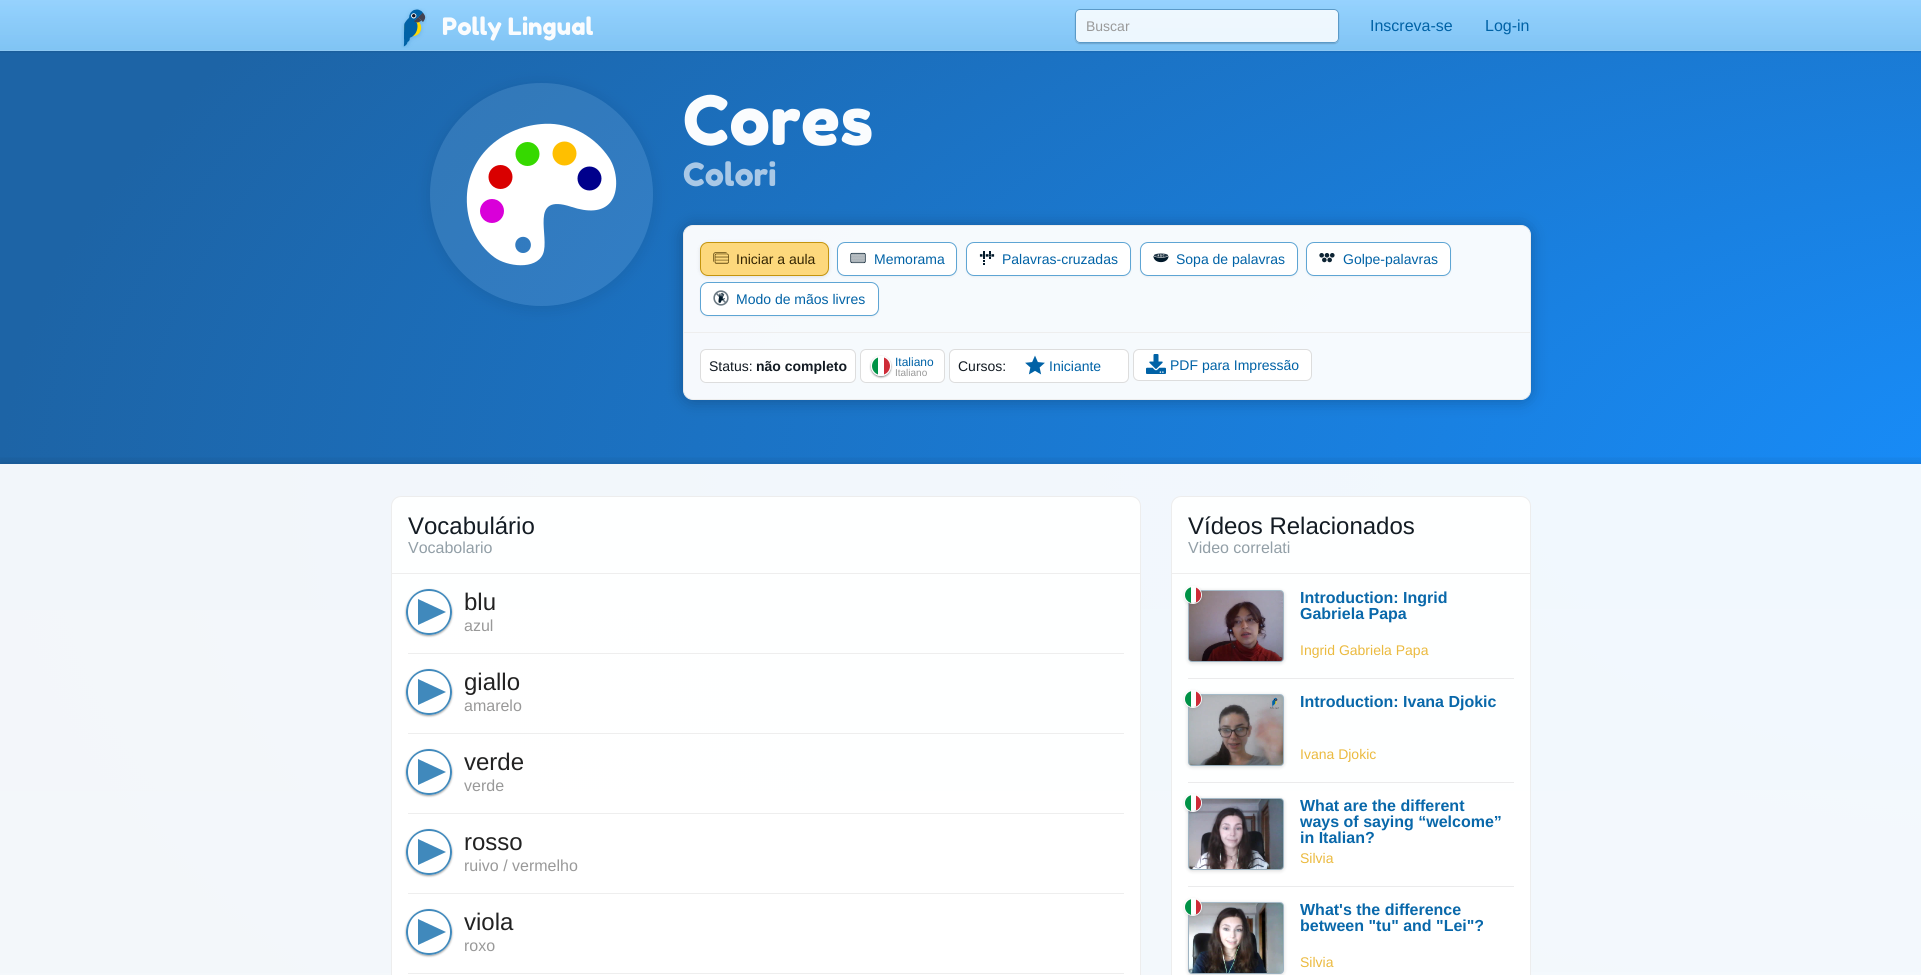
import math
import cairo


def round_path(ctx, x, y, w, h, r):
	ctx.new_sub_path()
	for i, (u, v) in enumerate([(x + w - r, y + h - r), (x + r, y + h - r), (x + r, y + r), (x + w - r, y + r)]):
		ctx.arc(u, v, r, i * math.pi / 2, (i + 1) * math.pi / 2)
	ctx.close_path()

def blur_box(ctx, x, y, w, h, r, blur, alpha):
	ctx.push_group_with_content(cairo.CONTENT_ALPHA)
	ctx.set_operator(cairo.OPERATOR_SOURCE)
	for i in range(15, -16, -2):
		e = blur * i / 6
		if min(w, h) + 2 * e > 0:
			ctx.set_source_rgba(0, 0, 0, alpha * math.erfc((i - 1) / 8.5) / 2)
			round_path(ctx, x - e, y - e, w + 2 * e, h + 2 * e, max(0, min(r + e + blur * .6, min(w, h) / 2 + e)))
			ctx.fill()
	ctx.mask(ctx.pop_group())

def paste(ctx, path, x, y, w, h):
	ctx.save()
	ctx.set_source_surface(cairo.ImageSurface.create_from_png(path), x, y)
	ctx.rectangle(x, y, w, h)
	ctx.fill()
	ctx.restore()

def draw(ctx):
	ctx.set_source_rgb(1, 1, 1)
	ctx.paint()
	paste(ctx, 'media/1.png', 0, 0, 1921, 975)
	ctx.save()
	ctx.rectangle(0, 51, 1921, 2)
	ctx.clip()
	ctx.set_source_rgb(0, 0, 0)
	blur_box(ctx, 0, 1, 1921, 51, 0, 1, 0.1)
	ctx.restore()
	ctx.set_source_rgb(0.553, 0.784, 0.953)
	ctx.rectangle(0, 50, 1921, 1)
	ctx.fill()
	paste(ctx, 'media/2.png', 401, 8, 26, 40)
	ctx.select_font_face('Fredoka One')
	ctx.set_font_size(24)
	ctx.set_source_rgb(0.98, 0.988, 0.996)
	ctx.move_to(442, 35)
	ctx.show_text('Polly Lingual')
	ctx.save()
	ctx.set_fill_rule(cairo.FILL_RULE_EVEN_ODD)
	ctx.new_path()
	ctx.move_to(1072, 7)
	ctx.line_to(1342, 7)
	ctx.line_to(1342, 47)
	ctx.line_to(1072, 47)
	ctx.close_path()
	ctx.move_to(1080, 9)
	ctx.line_to(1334, 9)
	ctx.curve_to(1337, 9, 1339, 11, 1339, 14)
	ctx.line_to(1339, 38)
	ctx.curve_to(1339, 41, 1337, 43, 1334, 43)
	ctx.line_to(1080, 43)
	ctx.curve_to(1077, 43, 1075, 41, 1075, 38)
	ctx.line_to(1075, 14)
	ctx.curve_to(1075, 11, 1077, 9, 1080, 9)
	ctx.close_path()
	ctx.clip()
	ctx.set_source_rgb(0, 0, 0)
	blur_box(ctx, 1075, 10, 264, 34, 5, 0.5, 0.16)
	ctx.restore()
	ctx.set_source_rgba(1, 1, 1, 0.85)
	round_path(ctx, 1075, 9, 264, 34, 5)
	ctx.fill()
	round_path(ctx, 1075.5, 9.5, 263, 33, 4.5)
	ctx.set_source_rgba(0, 0.384, 0.651, 0.62)
	ctx.set_line_width(1)
	ctx.stroke()
	ctx.select_font_face('Liberation Sans')
	ctx.set_font_size(14)
	ctx.set_source_rgb(0.6, 0.6, 0.6)
	ctx.move_to(1086, 31)
	ctx.show_text('Buscar')
	ctx.set_font_size(16)
	ctx.set_source_rgb(0, 0.384, 0.651)
	ctx.move_to(1370, 31)
	ctx.show_text('Inscreva-se')
	ctx.move_to(1485, 31)
	ctx.show_text('Log-in')
	ctx.save()
	ctx.set_fill_rule(cairo.FILL_RULE_EVEN_ODD)
	ctx.new_path()
	ctx.move_to(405, 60)
	ctx.line_to(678, 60)
	ctx.line_to(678, 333)
	ctx.line_to(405, 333)
	ctx.close_path()
	ctx.move_to(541.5, 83)
	ctx.curve_to(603, 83, 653, 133, 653, 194.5)
	ctx.curve_to(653, 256, 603, 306, 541.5, 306)
	ctx.curve_to(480, 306, 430, 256, 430, 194.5)
	ctx.curve_to(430, 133, 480, 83, 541.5, 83)
	ctx.close_path()
	ctx.clip()
	ctx.set_source_rgb(0, 0, 0)
	blur_box(ctx, 430, 85, 223, 223, 111.5, 8, 0.1)
	ctx.restore()
	ctx.set_source_rgba(1, 1, 1, 0.1)
	ctx.arc(541.5, 194.5, 111.5, 0, 2 * math.pi)
	ctx.fill()
	paste(ctx, 'media/3.png', 466, 123, 151, 143)
	ctx.select_font_face('Fredoka One')
	ctx.set_font_size(68)
	ctx.set_source_rgb(0.98, 0.988, 0.996)
	ctx.move_to(683, 145)
	ctx.show_text('Cores')
	ctx.set_font_size(32)
	ctx.set_source_rgb(0.663, 0.784, 0.902)
	ctx.move_to(683, 186)
	ctx.show_text('Colori')
	ctx.save()
	ctx.set_fill_rule(cairo.FILL_RULE_EVEN_ODD)
	ctx.new_path()
	ctx.move_to(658, 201)
	ctx.line_to(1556, 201)
	ctx.line_to(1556, 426)
	ctx.line_to(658, 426)
	ctx.close_path()
	ctx.move_to(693, 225)
	ctx.line_to(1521, 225)
	ctx.curve_to(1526.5, 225, 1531, 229.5, 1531, 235)
	ctx.line_to(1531, 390)
	ctx.curve_to(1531, 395.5, 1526.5, 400, 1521, 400)
	ctx.line_to(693, 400)
	ctx.curve_to(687.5, 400, 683, 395.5, 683, 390)
	ctx.line_to(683, 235)
	ctx.curve_to(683, 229.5, 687.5, 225, 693, 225)
	ctx.close_path()
	ctx.clip()
	ctx.set_source_rgb(0, 0, 0)
	blur_box(ctx, 683, 226, 848, 175, 10, 8, 0.25)
	ctx.restore()
	ctx.set_source_rgba(1, 1, 1, 0.96)
	round_path(ctx, 683.5, 225.5, 847, 174, 9.5)
	ctx.fill_preserve()
	ctx.set_source_rgb(0.929, 0.929, 0.929)
	ctx.stroke()
	ctx.set_source_rgb(0, 0, 0)
	blur_box(ctx, 700, 243, 129, 34, 8, 2, 0.1)
	ctx.set_source_rgb(0.992, 0.847, 0.486)
	round_path(ctx, 700.5, 242.5, 128, 33, 7.5)
	ctx.fill_preserve()
	ctx.set_source_rgb(0.769, 0.58, 0.051)
	ctx.stroke()
	paste(ctx, 'media/4.png', 713, 252, 16, 12)
	ctx.select_font_face('Liberation Sans')
	ctx.set_font_size(14)
	ctx.set_source_rgb(0.204, 0.145, 0.008)
	ctx.move_to(736, 264)
	ctx.show_text('Iniciar a aula')
	ctx.set_source_rgb(0, 0, 0)
	blur_box(ctx, 837, 243, 120, 34, 8, 1, 0.05)
	ctx.set_source_rgb(1, 1, 1)
	round_path(ctx, 837.5, 242.5, 119, 33, 7.5)
	ctx.fill_preserve()
	ctx.set_source_rgb(0.369, 0.647, 0.831)
	ctx.stroke()
	paste(ctx, 'media/5.png', 850, 252, 16, 12)
	ctx.set_source_rgb(0, 0.384, 0.651)
	ctx.move_to(874, 264)
	ctx.show_text('Memorama')
	ctx.set_source_rgb(0, 0, 0)
	blur_box(ctx, 966, 243, 165, 34, 8, 1, 0.05)
	ctx.set_source_rgb(1, 1, 1)
	round_path(ctx, 966.5, 242.5, 164, 33, 7.5)
	ctx.fill_preserve()
	ctx.set_source_rgb(0.369, 0.647, 0.831)
	ctx.stroke()
	paste(ctx, 'media/6.png', 979, 251, 16, 14)
	ctx.set_source_rgb(0, 0.384, 0.651)
	ctx.move_to(1002, 264)
	ctx.show_text('Palavras-cruzadas')
	ctx.set_source_rgb(0, 0, 0)
	blur_box(ctx, 1140, 243, 158, 34, 8, 1, 0.05)
	ctx.set_source_rgb(1, 1, 1)
	round_path(ctx, 1140.5, 242.5, 157, 33, 7.5)
	ctx.fill_preserve()
	ctx.set_source_rgb(0.369, 0.647, 0.831)
	ctx.stroke()
	paste(ctx, 'media/7.png', 1153, 253, 16, 10)
	ctx.set_source_rgb(0, 0.384, 0.651)
	ctx.move_to(1176, 264)
	ctx.show_text('Sopa de palavras')
	ctx.set_source_rgb(0, 0, 0)
	blur_box(ctx, 1306, 243, 145, 34, 8, 1, 0.05)
	ctx.set_source_rgb(1, 1, 1)
	round_path(ctx, 1306.5, 242.5, 144, 33, 7.5)
	ctx.fill_preserve()
	ctx.set_source_rgb(0.369, 0.647, 0.831)
	ctx.stroke()
	paste(ctx, 'media/8.png', 1319, 253, 16, 10)
	ctx.set_source_rgb(0, 0.384, 0.651)
	ctx.move_to(1343, 264)
	ctx.show_text('Golpe-palavras')
	ctx.set_source_rgb(0, 0, 0)
	blur_box(ctx, 700, 283, 179, 34, 8, 1, 0.05)
	ctx.set_source_rgb(1, 1, 1)
	round_path(ctx, 700.5, 282.5, 178, 33, 7.5)
	ctx.fill_preserve()
	ctx.set_source_rgb(0.369, 0.647, 0.831)
	ctx.stroke()
	paste(ctx, 'media/9.png', 713, 290, 16, 16)
	ctx.set_source_rgb(0, 0.384, 0.651)
	ctx.move_to(736, 304)
	ctx.show_text('Modo de mãos livres')
	ctx.set_source_rgb(0.933, 0.933, 0.933)
	ctx.rectangle(684, 332, 846, 1)
	ctx.fill()
	ctx.set_source_rgb(1, 1, 1)
	round_path(ctx, 700.5, 349.5, 155, 33, 5.5)
	ctx.fill_preserve()
	ctx.set_source_rgb(0.867, 0.867, 0.867)
	ctx.stroke()
	ctx.set_source_rgb(0.075, 0.106, 0.137)
	ctx.move_to(709, 371)
	ctx.show_text('Status:')
	ctx.select_font_face('Liberation Sans', cairo.FONT_SLANT_NORMAL, cairo.FONT_WEIGHT_BOLD)
	ctx.move_to(756, 371)
	ctx.show_text('não completo')
	ctx.set_source_rgb(1, 1, 1)
	round_path(ctx, 860.5, 349.5, 84, 33, 5.5)
	ctx.fill_preserve()
	ctx.set_source_rgb(0.867, 0.867, 0.867)
	ctx.stroke()
	ctx.save()
	ctx.set_fill_rule(cairo.FILL_RULE_EVEN_ODD)
	ctx.new_path()
	ctx.move_to(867, 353)
	ctx.line_to(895, 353)
	ctx.line_to(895, 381)
	ctx.line_to(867, 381)
	ctx.close_path()
	ctx.move_to(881, 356)
	ctx.curve_to(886.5, 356, 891, 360.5, 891, 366)
	ctx.curve_to(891, 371.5, 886.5, 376, 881, 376)
	ctx.curve_to(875.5, 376, 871, 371.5, 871, 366)
	ctx.curve_to(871, 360.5, 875.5, 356, 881, 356)
	ctx.close_path()
	ctx.clip()
	ctx.set_source_rgb(0, 0, 0)
	blur_box(ctx, 871, 357, 20, 20, 10, 1, 0.5)
	ctx.restore()
	ctx.arc(881, 366, 9.5, 0, 2 * math.pi)
	ctx.set_source_rgba(1, 1, 1, 0.94)
	ctx.stroke()
	ctx.save()
	round_path(ctx, 872, 357, 18, 18, 9)
	ctx.clip()
	ctx.set_source_rgb(0, 0.573, 0.275)
	ctx.rectangle(872, 357, 6, 18)
	ctx.fill()
	ctx.set_source_rgb(0.808, 0.169, 0.216)
	ctx.rectangle(884, 357, 6, 18)
	ctx.fill()
	ctx.restore()
	ctx.select_font_face('Liberation Sans')
	ctx.set_font_size(12)
	ctx.set_source_rgb(0, 0.384, 0.651)
	ctx.move_to(895, 366)
	ctx.show_text('Italiano')
	ctx.set_font_size(10)
	ctx.set_source_rgb(0.6, 0.6, 0.6)
	ctx.move_to(895, 376)
	ctx.show_text('Italiano')
	ctx.set_source_rgb(1, 1, 1)
	round_path(ctx, 949.5, 349.5, 179, 33, 5.5)
	ctx.fill_preserve()
	ctx.set_source_rgb(0.867, 0.867, 0.867)
	ctx.stroke()
	ctx.set_font_size(14)
	ctx.set_source_rgb(0.075, 0.106, 0.137)
	ctx.move_to(958, 371)
	ctx.show_text('Cursos:')
	paste(ctx, 'media/10.png', 1025, 355, 20, 20)
	ctx.set_source_rgb(0, 0.384, 0.651)
	ctx.move_to(1049, 371)
	ctx.show_text('Iniciante')
	ctx.set_source_rgb(1, 1, 1)
	round_path(ctx, 1133.5, 349.5, 178, 31, 5.5)
	ctx.fill_preserve()
	ctx.set_source_rgb(0.867, 0.867, 0.867)
	ctx.stroke()
	paste(ctx, 'media/11.png', 1146, 354, 20, 20)
	ctx.set_source_rgb(0, 0.384, 0.651)
	ctx.move_to(1170, 370)
	ctx.show_text('PDF para Impressão')
	ctx.save()
	ctx.rectangle(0, 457, 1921, 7)
	ctx.clip()
	ctx.set_source_rgb(0, 0, 0)
	blur_box(ctx, 0, 465, 1921, 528, 0, 6, 0.25)
	ctx.restore()
	ctx.set_source_rgba(1, 1, 1, 0.96)
	round_path(ctx, 391.5, 496.5, 749, 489, 9.5)
	ctx.fill_preserve()
	ctx.set_source_rgb(0.929, 0.929, 0.929)
	ctx.stroke()
	ctx.set_font_size(24)
	ctx.set_source_rgb(0.075, 0.106, 0.137)
	ctx.move_to(408, 534)
	ctx.show_text('Vocabulário')
	ctx.set_source_rgb(0.933, 0.933, 0.933)
	ctx.rectangle(392, 573, 748, 1)
	ctx.fill()
	ctx.set_font_size(16)
	ctx.set_source_rgb(0.573, 0.624, 0.655)
	ctx.move_to(408, 553)
	ctx.show_text('Vocabolario')
	ctx.set_source_rgb(0.933, 0.933, 0.933)
	ctx.rectangle(408, 653, 716, 1)
	ctx.fill()
	ctx.save()
	ctx.set_fill_rule(cairo.FILL_RULE_EVEN_ODD)
	ctx.new_path()
	ctx.move_to(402, 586)
	ctx.line_to(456, 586)
	ctx.line_to(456, 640)
	ctx.line_to(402, 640)
	ctx.close_path()
	ctx.move_to(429, 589)
	ctx.curve_to(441.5, 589, 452, 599.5, 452, 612)
	ctx.curve_to(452, 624.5, 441.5, 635, 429, 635)
	ctx.curve_to(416.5, 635, 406, 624.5, 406, 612)
	ctx.curve_to(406, 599.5, 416.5, 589, 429, 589)
	ctx.close_path()
	ctx.clip()
	ctx.set_source_rgb(0, 0, 0)
	blur_box(ctx, 406, 590, 46, 46, 23, 1, 0.38)
	ctx.restore()
	ctx.set_source_rgba(0, 0.384, 0.651, 0.75)
	ctx.arc(429, 612, 23, 0, 2 * math.pi)
	ctx.fill()
	ctx.set_source_rgb(1, 1, 1)
	ctx.set_fill_rule(cairo.FILL_RULE_EVEN_ODD)
	ctx.new_path()
	ctx.move_to(429, 591)
	ctx.curve_to(401, 591, 401, 633, 429, 633)
	ctx.curve_to(457, 633, 457, 591, 429, 591)
	ctx.close_path()
	ctx.move_to(418, 599)
	ctx.line_to(446, 612)
	ctx.line_to(418, 625)
	ctx.close_path()
	ctx.fill()
	ctx.set_font_size(24)
	ctx.set_source_rgb(0.133, 0.133, 0.133)
	ctx.move_to(464, 610)
	ctx.show_text('blu')
	ctx.set_font_size(16)
	ctx.set_source_rgb(0.6, 0.6, 0.6)
	ctx.move_to(464, 631)
	ctx.show_text('azul')
	ctx.set_source_rgb(0.933, 0.933, 0.933)
	ctx.rectangle(408, 733, 716, 1)
	ctx.fill()
	ctx.save()
	ctx.new_path()
	ctx.move_to(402, 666)
	ctx.line_to(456, 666)
	ctx.line_to(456, 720)
	ctx.line_to(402, 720)
	ctx.close_path()
	ctx.move_to(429, 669)
	ctx.curve_to(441.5, 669, 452, 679.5, 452, 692)
	ctx.curve_to(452, 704.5, 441.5, 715, 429, 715)
	ctx.curve_to(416.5, 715, 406, 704.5, 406, 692)
	ctx.curve_to(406, 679.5, 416.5, 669, 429, 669)
	ctx.close_path()
	ctx.clip()
	ctx.set_source_rgb(0, 0, 0)
	blur_box(ctx, 406, 670, 46, 46, 23, 1, 0.38)
	ctx.restore()
	ctx.set_source_rgba(0, 0.384, 0.651, 0.75)
	ctx.arc(429, 692, 23, 0, 2 * math.pi)
	ctx.fill()
	ctx.set_source_rgb(1, 1, 1)
	ctx.new_path()
	ctx.move_to(429, 671)
	ctx.curve_to(401, 671, 401, 713, 429, 713)
	ctx.curve_to(457, 713, 457, 671, 429, 671)
	ctx.close_path()
	ctx.move_to(418, 679)
	ctx.line_to(446, 692)
	ctx.line_to(418, 705)
	ctx.close_path()
	ctx.fill()
	ctx.set_font_size(24)
	ctx.set_source_rgb(0.133, 0.133, 0.133)
	ctx.move_to(464, 690)
	ctx.show_text('giallo')
	ctx.set_font_size(16)
	ctx.set_source_rgb(0.6, 0.6, 0.6)
	ctx.move_to(464, 711)
	ctx.show_text('amarelo')
	ctx.set_source_rgb(0.933, 0.933, 0.933)
	ctx.rectangle(408, 813, 716, 1)
	ctx.fill()
	ctx.save()
	ctx.new_path()
	ctx.move_to(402, 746)
	ctx.line_to(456, 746)
	ctx.line_to(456, 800)
	ctx.line_to(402, 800)
	ctx.close_path()
	ctx.move_to(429, 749)
	ctx.curve_to(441.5, 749, 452, 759.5, 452, 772)
	ctx.curve_to(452, 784.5, 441.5, 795, 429, 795)
	ctx.curve_to(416.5, 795, 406, 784.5, 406, 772)
	ctx.curve_to(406, 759.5, 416.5, 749, 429, 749)
	ctx.close_path()
	ctx.clip()
	ctx.set_source_rgb(0, 0, 0)
	blur_box(ctx, 406, 750, 46, 46, 23, 1, 0.38)
	ctx.restore()
	ctx.set_source_rgba(0, 0.384, 0.651, 0.75)
	ctx.arc(429, 772, 23, 0, 2 * math.pi)
	ctx.fill()
	ctx.set_source_rgb(1, 1, 1)
	ctx.new_path()
	ctx.move_to(429, 751)
	ctx.curve_to(401, 751, 401, 793, 429, 793)
	ctx.curve_to(457, 793, 457, 751, 429, 751)
	ctx.close_path()
	ctx.move_to(418, 759)
	ctx.line_to(446, 772)
	ctx.line_to(418, 785)
	ctx.close_path()
	ctx.fill()
	ctx.set_font_size(24)
	ctx.set_source_rgb(0.133, 0.133, 0.133)
	ctx.move_to(464, 770)
	ctx.show_text('verde')
	ctx.set_font_size(16)
	ctx.set_source_rgb(0.6, 0.6, 0.6)
	ctx.move_to(464, 791)
	ctx.show_text('verde')
	ctx.set_source_rgb(0.933, 0.933, 0.933)
	ctx.rectangle(408, 893, 716, 1)
	ctx.fill()
	ctx.save()
	ctx.new_path()
	ctx.move_to(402, 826)
	ctx.line_to(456, 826)
	ctx.line_to(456, 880)
	ctx.line_to(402, 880)
	ctx.close_path()
	ctx.move_to(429, 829)
	ctx.curve_to(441.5, 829, 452, 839.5, 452, 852)
	ctx.curve_to(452, 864.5, 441.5, 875, 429, 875)
	ctx.curve_to(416.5, 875, 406, 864.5, 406, 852)
	ctx.curve_to(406, 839.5, 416.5, 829, 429, 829)
	ctx.close_path()
	ctx.clip()
	ctx.set_source_rgb(0, 0, 0)
	blur_box(ctx, 406, 830, 46, 46, 23, 1, 0.38)
	ctx.restore()
	ctx.set_source_rgba(0, 0.384, 0.651, 0.75)
	ctx.arc(429, 852, 23, 0, 2 * math.pi)
	ctx.fill()
	ctx.set_source_rgb(1, 1, 1)
	ctx.new_path()
	ctx.move_to(429, 831)
	ctx.curve_to(401, 831, 401, 873, 429, 873)
	ctx.curve_to(457, 873, 457, 831, 429, 831)
	ctx.close_path()
	ctx.move_to(418, 839)
	ctx.line_to(446, 852)
	ctx.line_to(418, 865)
	ctx.close_path()
	ctx.fill()
	ctx.set_font_size(24)
	ctx.set_source_rgb(0.133, 0.133, 0.133)
	ctx.move_to(464, 850)
	ctx.show_text('rosso')
	ctx.set_font_size(16)
	ctx.set_source_rgb(0.6, 0.6, 0.6)
	ctx.move_to(464, 871)
	ctx.show_text('ruivo / vermelho')
	ctx.set_source_rgb(0.933, 0.933, 0.933)
	ctx.rectangle(408, 973, 716, 1)
	ctx.fill()
	ctx.save()
	ctx.new_path()
	ctx.move_to(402, 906)
	ctx.line_to(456, 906)
	ctx.line_to(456, 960)
	ctx.line_to(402, 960)
	ctx.close_path()
	ctx.move_to(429, 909)
	ctx.curve_to(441.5, 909, 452, 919.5, 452, 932)
	ctx.curve_to(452, 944.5, 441.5, 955, 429, 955)
	ctx.curve_to(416.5, 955, 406, 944.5, 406, 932)
	ctx.curve_to(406, 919.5, 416.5, 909, 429, 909)
	ctx.close_path()
	ctx.clip()
	ctx.set_source_rgb(0, 0, 0)
	blur_box(ctx, 406, 910, 46, 46, 23, 1, 0.38)
	ctx.restore()
	ctx.set_source_rgba(0, 0.384, 0.651, 0.75)
	ctx.arc(429, 932, 23, 0, 2 * math.pi)
	ctx.fill()
	ctx.set_source_rgb(1, 1, 1)
	ctx.new_path()
	ctx.move_to(429, 911)
	ctx.curve_to(401, 911, 401, 953, 429, 953)
	ctx.curve_to(457, 953, 457, 911, 429, 911)
	ctx.close_path()
	ctx.move_to(418, 919)
	ctx.line_to(446, 932)
	ctx.line_to(418, 945)
	ctx.close_path()
	ctx.fill()
	ctx.set_font_size(24)
	ctx.set_source_rgb(0.133, 0.133, 0.133)
	ctx.move_to(464, 930)
	ctx.show_text('viola')
	ctx.set_font_size(16)
	ctx.set_source_rgb(0.6, 0.6, 0.6)
	ctx.move_to(464, 951)
	ctx.show_text('roxo')
	ctx.set_source_rgba(1, 1, 1, 0.96)
	round_path(ctx, 1171.5, 496.5, 359, 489, 9.5)
	ctx.fill_preserve()
	ctx.set_source_rgb(0.929, 0.929, 0.929)
	ctx.stroke()
	ctx.set_font_size(24)
	ctx.set_source_rgb(0.075, 0.106, 0.137)
	ctx.move_to(1188, 534)
	ctx.show_text('Vídeos Relacionados')
	ctx.set_source_rgb(0.933, 0.933, 0.933)
	ctx.rectangle(1172, 573, 358, 1)
	ctx.fill()
	ctx.set_font_size(16)
	ctx.set_source_rgb(0.573, 0.624, 0.655)
	ctx.move_to(1188, 553)
	ctx.show_text('Video correlati')
	ctx.set_source_rgb(0.918, 0.918, 0.922)
	ctx.rectangle(1188, 678, 326, 1)
	ctx.fill()
	ctx.set_source_rgb(0, 0, 0)
	blur_box(ctx, 1188, 591, 96, 72, 4, 2, 0.15)
	ctx.set_source_rgba(0, 0.384, 0.651, 0.24)
	round_path(ctx, 1188, 590, 96, 72, 4)
	ctx.fill()
	round_path(ctx, 1188.5, 590.5, 95, 71, 3.5)
	ctx.set_source_rgba(0, 0, 0, 0.1)
	ctx.stroke()
	paste(ctx, 'media/12.png', 1189, 591, 94, 70)
	ctx.set_source_rgb(0, 0, 0)
	blur_box(ctx, 1184, 587, 18, 18, 9, 1.5, 0.1)
	ctx.arc(1193, 595, 8.5, 0, 2 * math.pi)
	ctx.set_source_rgba(1, 1, 1, 0.94)
	ctx.stroke()
	ctx.save()
	ctx.set_fill_rule(cairo.FILL_RULE_WINDING)
	round_path(ctx, 1185, 587, 16, 16, 8)
	ctx.clip()
	ctx.set_source_rgb(0, 0.573, 0.275)
	ctx.rectangle(1185, 587, 6, 16)
	ctx.fill()
	ctx.set_source_rgb(1, 1, 1)
	ctx.rectangle(1191, 587, 5, 16)
	ctx.fill()
	ctx.set_source_rgb(0.808, 0.169, 0.216)
	ctx.rectangle(1196, 587, 5, 16)
	ctx.fill()
	ctx.restore()
	ctx.select_font_face('Liberation Sans', cairo.FONT_SLANT_NORMAL, cairo.FONT_WEIGHT_BOLD)
	ctx.set_source_rgb(0.039, 0.408, 0.667)
	ctx.move_to(1300, 603)
	ctx.show_text('Introduction: Ingrid')
	ctx.move_to(1300, 619)
	ctx.show_text('Gabriela Papa')
	ctx.select_font_face('Liberation Sans')
	ctx.set_font_size(14)
	ctx.set_source_rgb(0.918, 0.729, 0.247)
	ctx.move_to(1300, 655)
	ctx.show_text('Ingrid Gabriela Papa')
	ctx.set_source_rgb(0.918, 0.918, 0.922)
	ctx.rectangle(1188, 782, 326, 1)
	ctx.fill()
	ctx.set_source_rgb(0, 0, 0)
	blur_box(ctx, 1188, 695, 96, 72, 4, 2, 0.15)
	ctx.set_source_rgba(0, 0.384, 0.651, 0.24)
	round_path(ctx, 1188, 694, 96, 72, 4)
	ctx.fill()
	round_path(ctx, 1188.5, 694.5, 95, 71, 3.5)
	ctx.set_source_rgba(0, 0, 0, 0.1)
	ctx.stroke()
	paste(ctx, 'media/13.png', 1189, 695, 94, 70)
	ctx.set_source_rgb(0, 0, 0)
	blur_box(ctx, 1184, 691, 18, 18, 9, 1.5, 0.1)
	ctx.arc(1193, 699, 8.5, 0, 2 * math.pi)
	ctx.set_source_rgba(1, 1, 1, 0.94)
	ctx.stroke()
	ctx.save()
	ctx.set_fill_rule(cairo.FILL_RULE_WINDING)
	round_path(ctx, 1185, 691, 16, 16, 8)
	ctx.clip()
	ctx.set_source_rgb(0, 0.573, 0.275)
	ctx.rectangle(1185, 691, 6, 16)
	ctx.fill()
	ctx.set_source_rgb(1, 1, 1)
	ctx.rectangle(1191, 691, 5, 16)
	ctx.fill()
	ctx.set_source_rgb(0.808, 0.169, 0.216)
	ctx.rectangle(1196, 691, 5, 16)
	ctx.fill()
	ctx.restore()
	ctx.select_font_face('Liberation Sans', cairo.FONT_SLANT_NORMAL, cairo.FONT_WEIGHT_BOLD)
	ctx.set_font_size(16)
	ctx.set_source_rgb(0.039, 0.408, 0.667)
	ctx.move_to(1300, 707)
	ctx.show_text('Introduction: Ivana Djokic')
	ctx.select_font_face('Liberation Sans')
	ctx.set_font_size(14)
	ctx.set_source_rgb(0.918, 0.729, 0.247)
	ctx.move_to(1300, 759)
	ctx.show_text('Ivana Djokic')
	ctx.set_source_rgb(0.918, 0.918, 0.922)
	ctx.rectangle(1188, 886, 326, 1)
	ctx.fill()
	ctx.set_source_rgb(0, 0, 0)
	blur_box(ctx, 1188, 799, 96, 72, 4, 2, 0.15)
	ctx.set_source_rgba(0, 0.384, 0.651, 0.24)
	round_path(ctx, 1188, 798, 96, 72, 4)
	ctx.fill()
	round_path(ctx, 1188.5, 798.5, 95, 71, 3.5)
	ctx.set_source_rgba(0, 0, 0, 0.1)
	ctx.stroke()
	paste(ctx, 'media/14.png', 1189, 799, 94, 70)
	ctx.set_source_rgb(0, 0, 0)
	blur_box(ctx, 1184, 795, 18, 18, 9, 1.5, 0.1)
	ctx.arc(1193, 803, 8.5, 0, 2 * math.pi)
	ctx.set_source_rgba(1, 1, 1, 0.94)
	ctx.stroke()
	ctx.save()
	ctx.set_fill_rule(cairo.FILL_RULE_WINDING)
	round_path(ctx, 1185, 795, 16, 16, 8)
	ctx.clip()
	ctx.set_source_rgb(0, 0.573, 0.275)
	ctx.rectangle(1185, 795, 6, 16)
	ctx.fill()
	ctx.set_source_rgb(1, 1, 1)
	ctx.rectangle(1191, 795, 5, 16)
	ctx.fill()
	ctx.set_source_rgb(0.808, 0.169, 0.216)
	ctx.rectangle(1196, 795, 5, 16)
	ctx.fill()
	ctx.restore()
	ctx.select_font_face('Liberation Sans', cairo.FONT_SLANT_NORMAL, cairo.FONT_WEIGHT_BOLD)
	ctx.set_font_size(16)
	ctx.set_source_rgb(0.039, 0.408, 0.667)
	for x, y, s in [
		(1300, 811, 'What are the different'),
		(1300, 827, 'ways of saying “welcome”'),
		(1300, 843, 'in Italian?'),
	]:
		ctx.move_to(x, y)
		ctx.show_text(s)
	ctx.select_font_face('Liberation Sans')
	ctx.set_font_size(14)
	ctx.set_source_rgb(0.918, 0.729, 0.247)
	ctx.move_to(1300, 863)
	ctx.show_text('Silvia')
	ctx.set_source_rgb(0, 0, 0)
	blur_box(ctx, 1188, 903, 96, 72, 4, 2, 0.15)
	ctx.set_source_rgba(0, 0.384, 0.651, 0.24)
	round_path(ctx, 1188, 902, 96, 72, 4)
	ctx.fill()
	round_path(ctx, 1188.5, 902.5, 95, 71, 3.5)
	ctx.set_source_rgba(0, 0, 0, 0.1)
	ctx.stroke()
	paste(ctx, 'media/15.png', 1189, 903, 94, 70)
	ctx.set_source_rgb(0, 0, 0)
	blur_box(ctx, 1184, 899, 18, 18, 9, 1.5, 0.1)
	ctx.arc(1193, 907, 8.5, 0, 2 * math.pi)
	ctx.set_source_rgba(1, 1, 1, 0.94)
	ctx.stroke()
	ctx.save()
	ctx.set_fill_rule(cairo.FILL_RULE_WINDING)
	round_path(ctx, 1185, 899, 16, 16, 8)
	ctx.clip()
	ctx.set_source_rgb(0, 0.573, 0.275)
	ctx.rectangle(1185, 899, 6, 16)
	ctx.fill()
	ctx.set_source_rgb(1, 1, 1)
	ctx.rectangle(1191, 899, 5, 16)
	ctx.fill()
	ctx.set_source_rgb(0.808, 0.169, 0.216)
	ctx.rectangle(1196, 899, 5, 16)
	ctx.fill()
	ctx.restore()
	ctx.select_font_face('Liberation Sans', cairo.FONT_SLANT_NORMAL, cairo.FONT_WEIGHT_BOLD)
	ctx.set_font_size(16)
	ctx.set_source_rgb(0.039, 0.408, 0.667)
	ctx.move_to(1300, 915)
	ctx.show_text('What\'s the difference')
	ctx.move_to(1300, 931)
	ctx.show_text('between "tu" and "Lei"?')
	ctx.select_font_face('Liberation Sans')
	ctx.set_font_size(14)
	ctx.set_source_rgb(0.918, 0.729, 0.247)
	ctx.move_to(1300, 967)
	ctx.show_text('Silvia')


surface = cairo.ImageSurface(cairo.FORMAT_RGB24, 1921, 975)
ctx = cairo.Context(surface)
options = cairo.FontOptions()
options.set_hint_metrics(cairo.HINT_METRICS_OFF)
options.set_hint_style(cairo.HINT_STYLE_NONE)
ctx.set_font_options(options)
ctx.set_miter_limit(4)
draw(ctx)
surface.write_to_png('image.png')
